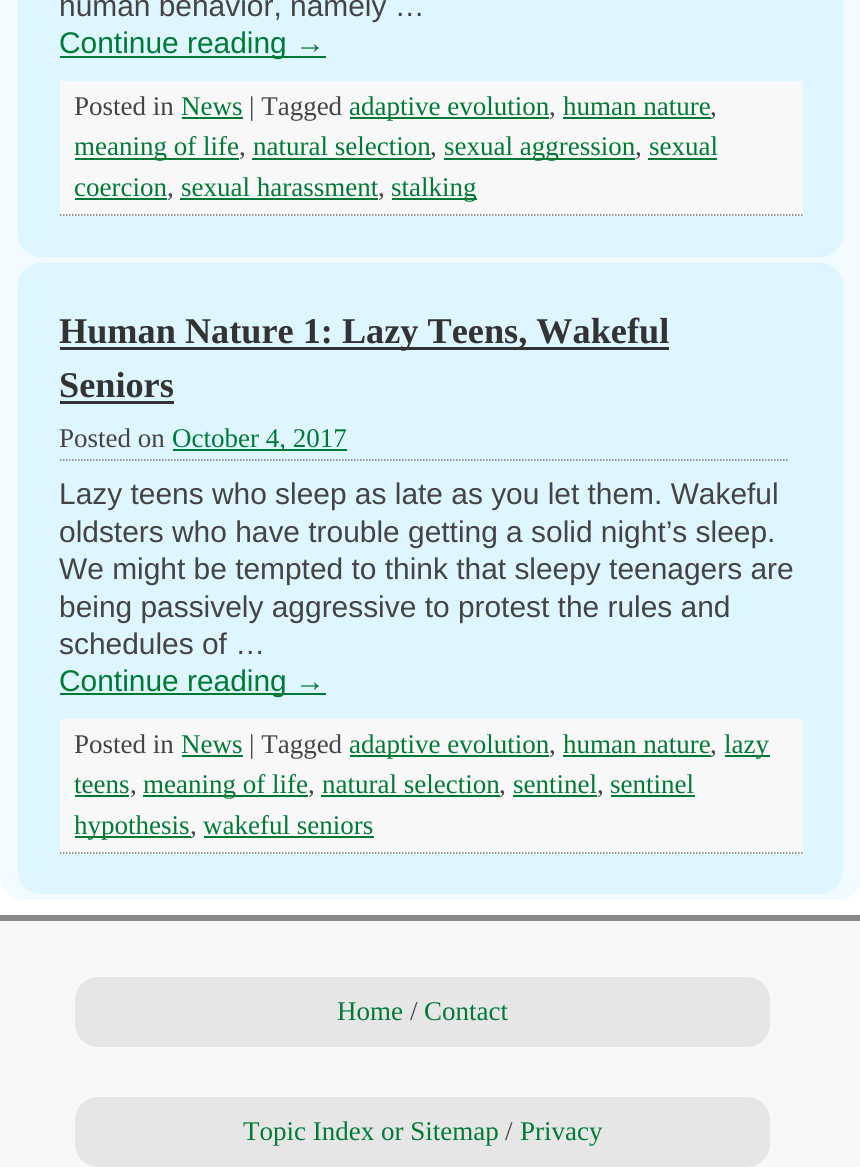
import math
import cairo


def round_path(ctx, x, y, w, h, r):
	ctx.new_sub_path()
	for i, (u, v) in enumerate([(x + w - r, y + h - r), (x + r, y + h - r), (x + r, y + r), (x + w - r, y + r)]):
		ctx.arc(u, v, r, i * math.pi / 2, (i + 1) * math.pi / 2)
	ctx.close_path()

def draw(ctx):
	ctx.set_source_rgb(0.969, 0.969, 0.969)
	ctx.paint()
	ctx.set_source_rgb(1, 1, 0.996)
	ctx.rectangle(0, 877, 860, 38)
	ctx.fill()
	ctx.set_source_rgb(0.949, 0.984, 1)
	round_path(ctx, 0, -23, 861, 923, 23)
	ctx.fill()
	ctx.set_source_rgb(0.871, 0.961, 1)
	round_path(ctx, 18, -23, 825, 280, 23)
	ctx.fill()
	ctx.select_font_face('Liberation Sans')
	ctx.set_font_size(29.9)
	ctx.set_source_rgb(0.267, 0.267, 0.267)
	ctx.move_to(59, 16)
	ctx.show_text('human behavior, namely …')
	ctx.set_source_rgb(0, 0.478, 0.204)
	ctx.rectangle(60, 56, 266, 2)
	ctx.fill()
	ctx.move_to(59, 53)
	ctx.show_text('Continue reading →')
	ctx.set_source_rgb(0.969, 0.969, 0.969)
	ctx.rectangle(60, 81, 743, 135)
	ctx.fill()
	ctx.new_path()
	ctx.move_to(60, 215)
	ctx.line_to(802.5, 215)
	ctx.set_source_rgb(0.467, 0.467, 0.467)
	ctx.set_line_width(1.5)
	ctx.set_dash([1.5, 1.5])
	ctx.stroke()
	ctx.select_font_face('Liberation Serif')
	ctx.set_font_size(27)
	ctx.set_source_rgb(0.267, 0.267, 0.267)
	ctx.move_to(74, 115)
	ctx.show_text('Posted in')
	ctx.set_source_rgb(0, 0.478, 0.204)
	ctx.move_to(181, 115)
	ctx.show_text('News')
	ctx.rectangle(182, 117, 61, 2)
	ctx.fill()
	ctx.set_source_rgb(0.267, 0.267, 0.267)
	ctx.move_to(249, 115)
	ctx.show_text('| Tagged')
	ctx.set_source_rgb(0, 0.478, 0.204)
	ctx.rectangle(350, 117, 199, 2)
	ctx.fill()
	ctx.move_to(349, 115)
	ctx.show_text('adaptive evolution')
	ctx.set_source_rgb(0.267, 0.267, 0.267)
	ctx.move_to(549, 115)
	ctx.show_text(',')
	ctx.set_source_rgb(0, 0.478, 0.204)
	ctx.move_to(563, 115)
	ctx.show_text('human nature')
	ctx.set_source_rgb(0.267, 0.267, 0.267)
	ctx.move_to(710, 115)
	ctx.show_text(',')
	ctx.set_source_rgb(0, 0.478, 0.204)
	ctx.rectangle(563, 117, 148, 2)
	ctx.fill()
	ctx.rectangle(75, 158, 164, 2)
	ctx.fill()
	ctx.move_to(74, 155)
	ctx.show_text('meaning of life')
	ctx.set_source_rgb(0.267, 0.267, 0.267)
	ctx.move_to(239, 155)
	ctx.show_text(',')
	ctx.set_source_rgb(0, 0.478, 0.204)
	ctx.move_to(253, 155)
	ctx.show_text('natural selection')
	ctx.set_source_rgb(0.267, 0.267, 0.267)
	ctx.move_to(430, 155)
	ctx.show_text(',')
	ctx.set_source_rgb(0, 0.478, 0.204)
	ctx.rectangle(252, 158, 179, 2)
	ctx.fill()
	ctx.rectangle(444, 158, 191, 2)
	ctx.fill()
	ctx.move_to(444, 155)
	ctx.show_text('sexual aggression')
	ctx.set_source_rgb(0.267, 0.267, 0.267)
	ctx.move_to(635, 155)
	ctx.show_text(',')
	ctx.set_source_rgb(0, 0.478, 0.204)
	ctx.rectangle(648, 158, 69, 2)
	ctx.fill()
	ctx.move_to(649, 155)
	ctx.show_text('sexual')
	ctx.move_to(74, 196)
	ctx.show_text('coercion')
	ctx.set_source_rgb(0.267, 0.267, 0.267)
	ctx.move_to(167, 196)
	ctx.show_text(',')
	ctx.set_source_rgb(0, 0.478, 0.204)
	ctx.rectangle(75, 198, 92, 2)
	ctx.fill()
	ctx.move_to(181, 196)
	ctx.show_text('sexual harassment')
	ctx.set_source_rgb(0.267, 0.267, 0.267)
	ctx.move_to(378, 196)
	ctx.show_text(',')
	ctx.set_source_rgb(0, 0.478, 0.204)
	ctx.rectangle(180, 198, 198, 2)
	ctx.fill()
	ctx.rectangle(392, 198, 85, 2)
	ctx.fill()
	ctx.move_to(391, 196)
	ctx.show_text('stalking')
	ctx.set_source_rgb(0.871, 0.961, 1)
	round_path(ctx, 18, 263, 825, 631, 23)
	ctx.fill()
	ctx.set_source_rgb(0.2, 0.2, 0.2)
	ctx.rectangle(60, 347, 609, 3)
	ctx.fill()
	ctx.select_font_face('Liberation Serif', cairo.FONT_SLANT_NORMAL, cairo.FONT_WEIGHT_BOLD)
	ctx.set_font_size(36.25)
	ctx.move_to(59, 343)
	ctx.show_text('Human Nature 1: Lazy Teens, Wakeful')
	ctx.move_to(59, 397)
	ctx.show_text('Seniors')
	ctx.rectangle(60, 401, 114, 3)
	ctx.fill()
	ctx.new_path()
	ctx.move_to(60, 460)
	ctx.line_to(787.5, 460)
	ctx.set_source_rgb(0.467, 0.467, 0.467)
	ctx.stroke()
	ctx.select_font_face('Liberation Serif')
	ctx.set_font_size(27)
	ctx.set_source_rgb(0.267, 0.267, 0.267)
	ctx.move_to(59, 447)
	ctx.show_text('Posted on')
	ctx.set_source_rgb(0, 0.478, 0.204)
	ctx.rectangle(173, 449, 174, 2)
	ctx.fill()
	ctx.move_to(172, 447)
	ctx.show_text('October 4, 2017')
	ctx.select_font_face('Liberation Sans')
	ctx.set_font_size(29.9)
	ctx.set_source_rgb(0.267, 0.267, 0.267)
	for x, y, s in [
		(59, 504, 'Lazy teens who sleep as late as you let them. Wakeful'),
		(59, 542, 'oldsters who have trouble getting a solid night’s sleep.'),
		(59, 579, 'We might be tempted to think that sleepy teenagers are'),
		(59, 617, 'being passively aggressive to protest the rules and'),
		(59, 654, 'schedules of …'),
	]:
		ctx.move_to(x, y)
		ctx.show_text(s)
	ctx.set_source_rgb(0, 0.478, 0.204)
	ctx.rectangle(60, 693, 266, 2)
	ctx.fill()
	ctx.move_to(59, 691)
	ctx.show_text('Continue reading →')
	ctx.set_source_rgb(0.969, 0.969, 0.969)
	ctx.rectangle(60, 719, 743, 135)
	ctx.fill()
	ctx.new_path()
	ctx.move_to(60, 853)
	ctx.line_to(802.5, 853)
	ctx.set_source_rgb(0.467, 0.467, 0.467)
	ctx.stroke()
	ctx.select_font_face('Liberation Serif')
	ctx.set_font_size(27)
	ctx.set_source_rgb(0.267, 0.267, 0.267)
	ctx.move_to(74, 753)
	ctx.show_text('Posted in')
	ctx.set_source_rgb(0, 0.478, 0.204)
	ctx.move_to(181, 753)
	ctx.show_text('News')
	ctx.rectangle(182, 755, 61, 2)
	ctx.fill()
	ctx.set_source_rgb(0.267, 0.267, 0.267)
	ctx.move_to(249, 753)
	ctx.show_text('| Tagged')
	ctx.set_source_rgb(0, 0.478, 0.204)
	ctx.rectangle(350, 755, 199, 2)
	ctx.fill()
	ctx.move_to(349, 753)
	ctx.show_text('adaptive evolution')
	ctx.set_source_rgb(0.267, 0.267, 0.267)
	ctx.move_to(549, 753)
	ctx.show_text(',')
	ctx.set_source_rgb(0, 0.478, 0.204)
	ctx.move_to(563, 753)
	ctx.show_text('human nature')
	ctx.set_source_rgb(0.267, 0.267, 0.267)
	ctx.move_to(710, 753)
	ctx.show_text(',')
	ctx.set_source_rgb(0, 0.478, 0.204)
	ctx.rectangle(563, 755, 148, 2)
	ctx.fill()
	ctx.rectangle(725, 755, 45, 2)
	ctx.fill()
	ctx.move_to(724, 753)
	ctx.show_text('lazy')
	ctx.move_to(74, 793)
	ctx.show_text('teens')
	ctx.set_source_rgb(0.267, 0.267, 0.267)
	ctx.move_to(130, 793)
	ctx.show_text(',')
	ctx.set_source_rgb(0, 0.478, 0.204)
	ctx.rectangle(75, 795, 54, 2)
	ctx.fill()
	ctx.rectangle(143, 795, 165, 2)
	ctx.fill()
	ctx.move_to(143, 793)
	ctx.show_text('meaning of life')
	ctx.set_source_rgb(0.267, 0.267, 0.267)
	ctx.move_to(308, 793)
	ctx.show_text(',')
	ctx.set_source_rgb(0, 0.478, 0.204)
	ctx.move_to(322, 793)
	ctx.show_text('natural selection')
	ctx.set_source_rgb(0.267, 0.267, 0.267)
	ctx.move_to(499, 793)
	ctx.show_text(',')
	ctx.set_source_rgb(0, 0.478, 0.204)
	ctx.rectangle(321, 795, 179, 2)
	ctx.fill()
	ctx.move_to(513, 793)
	ctx.show_text('sentinel')
	ctx.set_source_rgb(0.267, 0.267, 0.267)
	ctx.move_to(597, 793)
	ctx.show_text(',')
	ctx.set_source_rgb(0, 0.478, 0.204)
	ctx.rectangle(513, 795, 84, 2)
	ctx.fill()
	ctx.rectangle(611, 795, 84, 2)
	ctx.fill()
	ctx.move_to(610, 793)
	ctx.show_text('sentinel')
	ctx.rectangle(75, 836, 116, 2)
	ctx.fill()
	ctx.move_to(74, 834)
	ctx.show_text('hypothesis')
	ctx.set_source_rgb(0.267, 0.267, 0.267)
	ctx.move_to(190, 834)
	ctx.show_text(',')
	ctx.set_source_rgb(0, 0.478, 0.204)
	ctx.rectangle(204, 836, 170, 2)
	ctx.fill()
	ctx.move_to(203, 834)
	ctx.show_text('wakeful seniors')
	ctx.set_source_rgb(0.533, 0.533, 0.533)
	ctx.rectangle(0, 915, 860, 6)
	ctx.fill()
	ctx.set_source_rgb(0.902, 0.902, 0.902)
	round_path(ctx, 75, 977, 695, 70, 23)
	ctx.fill()
	ctx.set_source_rgb(0, 0.478, 0.204)
	ctx.move_to(337, 1020)
	ctx.show_text('Home')
	ctx.set_source_rgb(0.267, 0.267, 0.267)
	ctx.move_to(410, 1020)
	ctx.show_text('/')
	ctx.set_source_rgb(0, 0.478, 0.204)
	ctx.move_to(424, 1020)
	ctx.show_text('Contact')
	ctx.set_source_rgb(0.902, 0.902, 0.902)
	round_path(ctx, 75, 1097, 695, 70, 23)
	ctx.fill()
	ctx.set_source_rgb(0, 0.478, 0.204)
	ctx.move_to(243, 1140)
	ctx.show_text('Topic Index or Sitemap')
	ctx.set_source_rgb(0.267, 0.267, 0.267)
	ctx.move_to(505, 1140)
	ctx.show_text('/')
	ctx.set_source_rgb(0, 0.478, 0.204)
	ctx.move_to(520, 1140)
	ctx.show_text('Privacy')


surface = cairo.ImageSurface(cairo.FORMAT_RGB24, 860, 1167)
ctx = cairo.Context(surface)
options = cairo.FontOptions()
options.set_hint_metrics(cairo.HINT_METRICS_OFF)
options.set_hint_style(cairo.HINT_STYLE_NONE)
ctx.set_font_options(options)
ctx.set_miter_limit(4)
draw(ctx)
surface.write_to_png('image.png')
